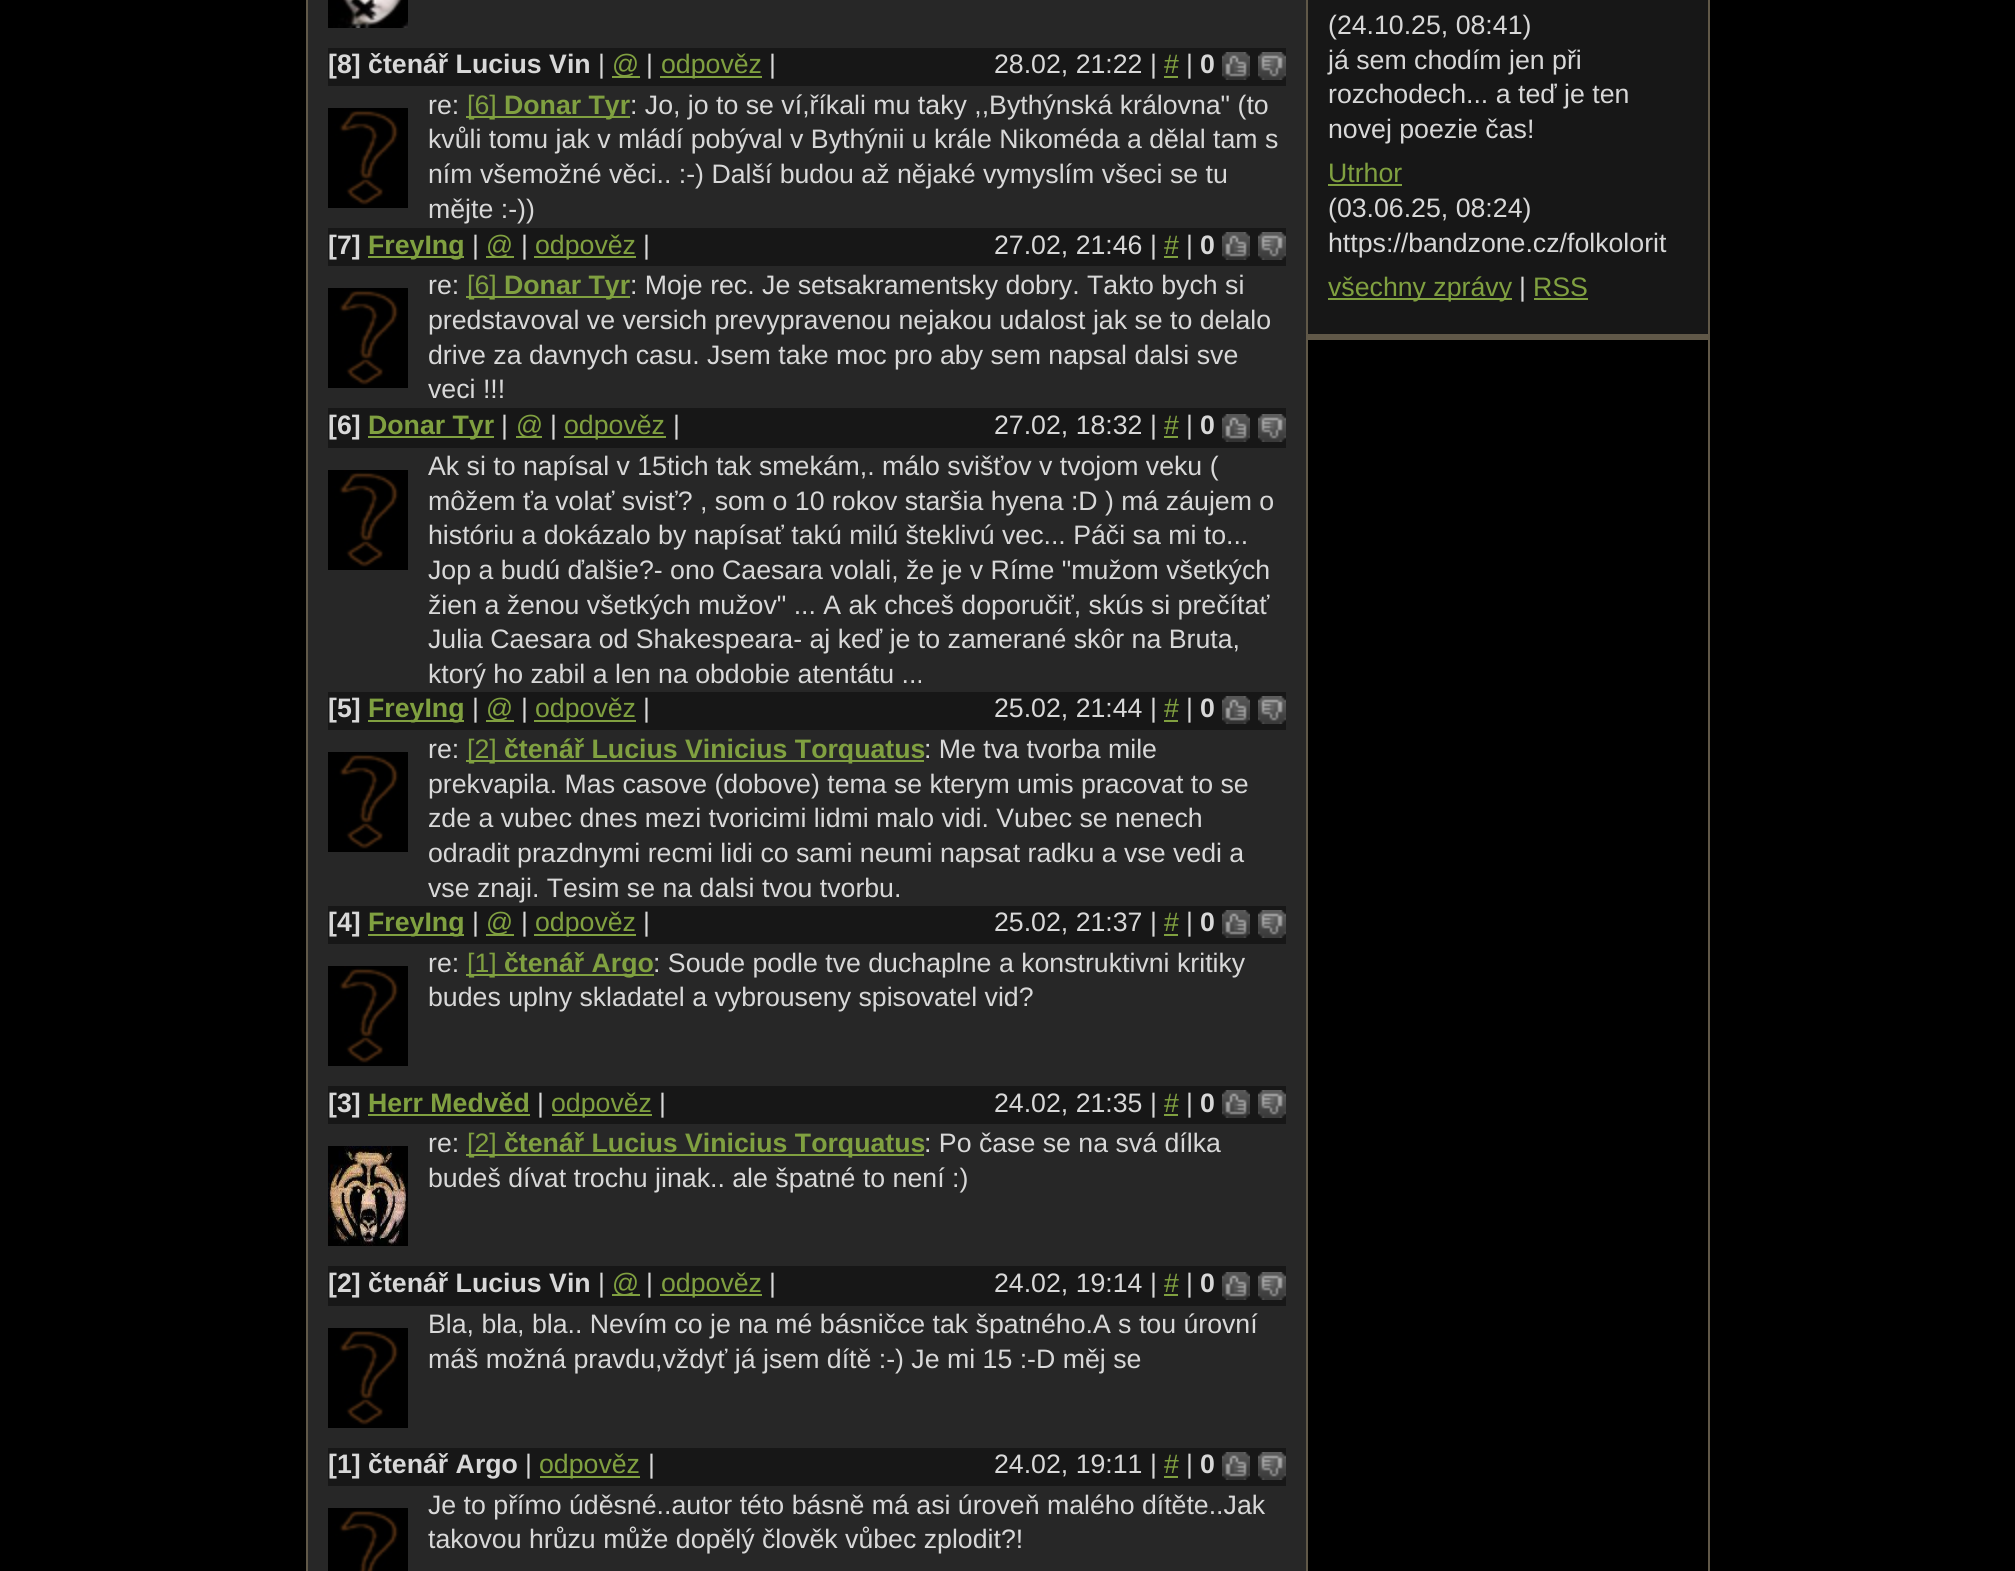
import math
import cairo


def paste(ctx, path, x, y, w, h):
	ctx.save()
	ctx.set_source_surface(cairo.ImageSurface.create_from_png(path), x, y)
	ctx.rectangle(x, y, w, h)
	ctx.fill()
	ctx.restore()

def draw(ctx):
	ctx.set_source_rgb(0, 0, 0)
	ctx.paint()
	ctx.set_source_rgb(0.376, 0.345, 0.282)
	ctx.rectangle(1708, 0, 2, 1571)
	ctx.rectangle(306, 0, 2, 1571)
	ctx.fill()
	ctx.set_source_rgb(0.153, 0.153, 0.153)
	ctx.rectangle(308, 0, 998, 1571)
	ctx.fill()
	ctx.set_source_rgb(0.376, 0.345, 0.282)
	ctx.rectangle(1306, 0, 2, 1571)
	ctx.fill()
	paste(ctx, 'media/1.png', 328, 0, 80, 28)
	ctx.set_source_rgb(0.09, 0.09, 0.09)
	ctx.rectangle(328, 48, 958, 38)
	ctx.fill()
	ctx.select_font_face('Liberation Sans', cairo.FONT_SLANT_NORMAL, cairo.FONT_WEIGHT_BOLD)
	ctx.set_font_size(26.7)
	ctx.set_source_rgb(0.847, 0.847, 0.847)
	ctx.move_to(328, 73)
	ctx.show_text('[8] čtenář Lucius Vin')
	ctx.select_font_face('Liberation Sans')
	ctx.move_to(598, 73)
	ctx.show_text('|')
	ctx.set_source_rgb(0.502, 0.627, 0.251)
	ctx.rectangle(612, 76, 28, 2)
	ctx.fill()
	ctx.move_to(612, 73)
	ctx.show_text('@')
	ctx.set_source_rgb(0.847, 0.847, 0.847)
	ctx.move_to(646, 73)
	ctx.show_text('|')
	ctx.set_source_rgb(0.502, 0.627, 0.251)
	ctx.rectangle(660, 76, 102, 2)
	ctx.fill()
	ctx.move_to(661, 73)
	ctx.show_text('odpověz')
	ctx.set_source_rgb(0.847, 0.847, 0.847)
	ctx.move_to(769, 73)
	ctx.show_text('|')
	ctx.move_to(994, 73)
	ctx.show_text('28.02, 21:22 |')
	ctx.set_source_rgb(0.502, 0.627, 0.251)
	ctx.move_to(1164, 73)
	ctx.show_text('#')
	ctx.rectangle(1164, 76, 14, 2)
	ctx.fill()
	ctx.set_source_rgb(0.847, 0.847, 0.847)
	ctx.move_to(1186, 73)
	ctx.show_text('|')
	ctx.select_font_face('Liberation Sans', cairo.FONT_SLANT_NORMAL, cairo.FONT_WEIGHT_BOLD)
	ctx.move_to(1200, 73)
	ctx.show_text('0')
	paste(ctx, 'media/2.png', 1222, 52, 28, 28)
	paste(ctx, 'media/3.png', 1258, 52, 28, 28)
	paste(ctx, 'media/4.png', 328, 108, 80, 100)
	ctx.select_font_face('Liberation Sans')
	ctx.move_to(428, 114)
	ctx.show_text('re:')
	ctx.set_source_rgb(0.502, 0.627, 0.251)
	ctx.rectangle(466, 116, 164, 2)
	ctx.fill()
	ctx.move_to(467, 114)
	ctx.show_text('[6]')
	ctx.select_font_face('Liberation Sans', cairo.FONT_SLANT_NORMAL, cairo.FONT_WEIGHT_BOLD)
	ctx.move_to(504, 114)
	ctx.show_text('Donar Tyr')
	ctx.select_font_face('Liberation Sans')
	ctx.set_source_rgb(0.847, 0.847, 0.847)
	for x, y, s in [
		(630, 114, ': Jo, jo to se ví,říkali mu taky ,,Bythýnská královna" (to'),
		(428, 148, 'kvůli tomu jak v mládí pobýval v Bythýnii u krále Nikoméda a dělal tam s'),
		(428, 183, 'ním všemožné věci.. :-) Další budou až nějaké vymyslím všeci se tu'),
		(428, 218, 'mějte :-))'),
	]:
		ctx.move_to(x, y)
		ctx.show_text(s)
	ctx.set_source_rgb(0.09, 0.09, 0.09)
	ctx.rectangle(328, 228, 958, 38)
	ctx.fill()
	ctx.select_font_face('Liberation Sans', cairo.FONT_SLANT_NORMAL, cairo.FONT_WEIGHT_BOLD)
	ctx.set_source_rgb(0.847, 0.847, 0.847)
	ctx.move_to(328, 254)
	ctx.show_text('[7]')
	ctx.set_source_rgb(0.502, 0.627, 0.251)
	ctx.rectangle(368, 256, 96, 2)
	ctx.fill()
	ctx.move_to(368, 254)
	ctx.show_text('FreyIng')
	ctx.select_font_face('Liberation Sans')
	ctx.set_source_rgb(0.847, 0.847, 0.847)
	ctx.move_to(472, 254)
	ctx.show_text('|')
	ctx.set_source_rgb(0.502, 0.627, 0.251)
	ctx.rectangle(486, 256, 28, 2)
	ctx.fill()
	ctx.move_to(486, 254)
	ctx.show_text('@')
	ctx.set_source_rgb(0.847, 0.847, 0.847)
	ctx.move_to(521, 254)
	ctx.show_text('|')
	ctx.set_source_rgb(0.502, 0.627, 0.251)
	ctx.rectangle(534, 256, 102, 2)
	ctx.fill()
	ctx.move_to(535, 254)
	ctx.show_text('odpověz')
	ctx.set_source_rgb(0.847, 0.847, 0.847)
	ctx.move_to(643, 254)
	ctx.show_text('|')
	ctx.move_to(994, 254)
	ctx.show_text('27.02, 21:46 |')
	ctx.set_source_rgb(0.502, 0.627, 0.251)
	ctx.move_to(1164, 254)
	ctx.show_text('#')
	ctx.rectangle(1164, 256, 14, 2)
	ctx.fill()
	ctx.set_source_rgb(0.847, 0.847, 0.847)
	ctx.move_to(1186, 254)
	ctx.show_text('|')
	ctx.select_font_face('Liberation Sans', cairo.FONT_SLANT_NORMAL, cairo.FONT_WEIGHT_BOLD)
	ctx.move_to(1200, 254)
	ctx.show_text('0')
	paste(ctx, 'media/2.png', 1222, 232, 28, 28)
	paste(ctx, 'media/3.png', 1258, 232, 28, 28)
	paste(ctx, 'media/4.png', 328, 288, 80, 100)
	ctx.select_font_face('Liberation Sans')
	ctx.move_to(428, 294)
	ctx.show_text('re:')
	ctx.set_source_rgb(0.502, 0.627, 0.251)
	ctx.rectangle(466, 296, 164, 2)
	ctx.fill()
	ctx.move_to(467, 294)
	ctx.show_text('[6]')
	ctx.select_font_face('Liberation Sans', cairo.FONT_SLANT_NORMAL, cairo.FONT_WEIGHT_BOLD)
	ctx.move_to(504, 294)
	ctx.show_text('Donar Tyr')
	ctx.select_font_face('Liberation Sans')
	ctx.set_source_rgb(0.847, 0.847, 0.847)
	for x, y, s in [
		(630, 294, ': Moje rec. Je setsakramentsky dobry. Takto bych si'),
		(428, 329, 'predstavoval ve versich prevypravenou nejakou udalost jak se to delalo'),
		(428, 364, 'drive za davnych casu. Jsem take moc pro aby sem napsal dalsi sve'),
		(428, 398, 'veci !!!'),
	]:
		ctx.move_to(x, y)
		ctx.show_text(s)
	ctx.set_source_rgb(0.09, 0.09, 0.09)
	ctx.rectangle(328, 408, 958, 40)
	ctx.fill()
	ctx.select_font_face('Liberation Sans', cairo.FONT_SLANT_NORMAL, cairo.FONT_WEIGHT_BOLD)
	ctx.set_source_rgb(0.847, 0.847, 0.847)
	ctx.move_to(328, 434)
	ctx.show_text('[6]')
	ctx.set_source_rgb(0.502, 0.627, 0.251)
	ctx.rectangle(368, 436, 126, 2)
	ctx.fill()
	ctx.move_to(368, 434)
	ctx.show_text('Donar Tyr')
	ctx.select_font_face('Liberation Sans')
	ctx.set_source_rgb(0.847, 0.847, 0.847)
	ctx.move_to(501, 434)
	ctx.show_text('|')
	ctx.set_source_rgb(0.502, 0.627, 0.251)
	ctx.rectangle(516, 436, 26, 2)
	ctx.fill()
	ctx.move_to(516, 434)
	ctx.show_text('@')
	ctx.set_source_rgb(0.847, 0.847, 0.847)
	ctx.move_to(550, 434)
	ctx.show_text('|')
	ctx.set_source_rgb(0.502, 0.627, 0.251)
	ctx.rectangle(564, 436, 102, 2)
	ctx.fill()
	ctx.move_to(564, 434)
	ctx.show_text('odpověz')
	ctx.set_source_rgb(0.847, 0.847, 0.847)
	ctx.move_to(673, 434)
	ctx.show_text('|')
	ctx.move_to(994, 434)
	ctx.show_text('27.02, 18:32 |')
	ctx.set_source_rgb(0.502, 0.627, 0.251)
	ctx.move_to(1164, 434)
	ctx.show_text('#')
	ctx.rectangle(1164, 436, 14, 2)
	ctx.fill()
	ctx.set_source_rgb(0.847, 0.847, 0.847)
	ctx.move_to(1186, 434)
	ctx.show_text('|')
	ctx.select_font_face('Liberation Sans', cairo.FONT_SLANT_NORMAL, cairo.FONT_WEIGHT_BOLD)
	ctx.move_to(1200, 434)
	ctx.show_text('0')
	paste(ctx, 'media/2.png', 1222, 414, 28, 28)
	paste(ctx, 'media/3.png', 1258, 414, 28, 28)
	paste(ctx, 'media/4.png', 328, 470, 80, 100)
	ctx.select_font_face('Liberation Sans')
	for x, y, s in [
		(428, 475, 'Ak si to napísal v 15tich tak smekám,. málo svišťov v tvojom veku ('),
		(428, 510, 'môžem ťa volať svisť? , som o 10 rokov staršia hyena :D ) má záujem o'),
		(428, 544, 'históriu a dokázalo by napísať takú milú šteklivú vec... Páči sa mi to...'),
		(428, 579, 'Jop a budú ďalšie?- ono Caesara volali, že je v Ríme "mužom všetkých'),
		(428, 614, 'žien a ženou všetkých mužov" ... A ak chceš doporučiť, skús si prečítať'),
		(428, 648, 'Julia Caesara od Shakespeara- aj keď je to zamerané skôr na Bruta,'),
		(428, 683, 'ktorý ho zabil a len na obdobie atentátu ...'),
	]:
		ctx.move_to(x, y)
		ctx.show_text(s)
	ctx.set_source_rgb(0.09, 0.09, 0.09)
	ctx.rectangle(328, 692, 958, 38)
	ctx.fill()
	ctx.select_font_face('Liberation Sans', cairo.FONT_SLANT_NORMAL, cairo.FONT_WEIGHT_BOLD)
	ctx.set_source_rgb(0.847, 0.847, 0.847)
	ctx.move_to(328, 717)
	ctx.show_text('[5]')
	ctx.set_source_rgb(0.502, 0.627, 0.251)
	ctx.rectangle(368, 720, 96, 2)
	ctx.fill()
	ctx.move_to(368, 717)
	ctx.show_text('FreyIng')
	ctx.select_font_face('Liberation Sans')
	ctx.set_source_rgb(0.847, 0.847, 0.847)
	ctx.move_to(472, 717)
	ctx.show_text('|')
	ctx.set_source_rgb(0.502, 0.627, 0.251)
	ctx.rectangle(486, 720, 28, 2)
	ctx.fill()
	ctx.move_to(486, 717)
	ctx.show_text('@')
	ctx.set_source_rgb(0.847, 0.847, 0.847)
	ctx.move_to(521, 717)
	ctx.show_text('|')
	ctx.set_source_rgb(0.502, 0.627, 0.251)
	ctx.rectangle(534, 720, 102, 2)
	ctx.fill()
	ctx.move_to(535, 717)
	ctx.show_text('odpověz')
	ctx.set_source_rgb(0.847, 0.847, 0.847)
	ctx.move_to(643, 717)
	ctx.show_text('|')
	ctx.move_to(994, 717)
	ctx.show_text('25.02, 21:44 |')
	ctx.set_source_rgb(0.502, 0.627, 0.251)
	ctx.move_to(1164, 717)
	ctx.show_text('#')
	ctx.rectangle(1164, 720, 14, 2)
	ctx.fill()
	ctx.set_source_rgb(0.847, 0.847, 0.847)
	ctx.move_to(1186, 717)
	ctx.show_text('|')
	ctx.select_font_face('Liberation Sans', cairo.FONT_SLANT_NORMAL, cairo.FONT_WEIGHT_BOLD)
	ctx.move_to(1200, 717)
	ctx.show_text('0')
	paste(ctx, 'media/2.png', 1222, 696, 28, 28)
	paste(ctx, 'media/3.png', 1258, 696, 28, 28)
	paste(ctx, 'media/4.png', 328, 752, 80, 100)
	ctx.select_font_face('Liberation Sans')
	ctx.move_to(428, 758)
	ctx.show_text('re:')
	ctx.set_source_rgb(0.502, 0.627, 0.251)
	ctx.rectangle(466, 760, 458, 2)
	ctx.fill()
	ctx.move_to(467, 758)
	ctx.show_text('[2]')
	ctx.select_font_face('Liberation Sans', cairo.FONT_SLANT_NORMAL, cairo.FONT_WEIGHT_BOLD)
	ctx.move_to(504, 758)
	ctx.show_text('čtenář Lucius Vinicius Torquatus')
	ctx.select_font_face('Liberation Sans')
	ctx.set_source_rgb(0.847, 0.847, 0.847)
	for x, y, s in [
		(924, 758, ': Me tva tvorba mile'),
		(428, 793, 'prekvapila. Mas casove (dobove) tema se kterym umis pracovat to se'),
		(428, 827, 'zde a vubec dnes mezi tvoricimi lidmi malo vidi. Vubec se nenech'),
		(428, 862, 'odradit prazdnymi recmi lidi co sami neumi napsat radku a vse vedi a'),
		(428, 897, 'vse znaji. Tesim se na dalsi tvou tvorbu.'),
	]:
		ctx.move_to(x, y)
		ctx.show_text(s)
	ctx.set_source_rgb(0.09, 0.09, 0.09)
	ctx.rectangle(328, 906, 958, 38)
	ctx.fill()
	ctx.select_font_face('Liberation Sans', cairo.FONT_SLANT_NORMAL, cairo.FONT_WEIGHT_BOLD)
	ctx.set_source_rgb(0.847, 0.847, 0.847)
	ctx.move_to(328, 931)
	ctx.show_text('[4]')
	ctx.set_source_rgb(0.502, 0.627, 0.251)
	ctx.rectangle(368, 934, 96, 2)
	ctx.fill()
	ctx.move_to(368, 931)
	ctx.show_text('FreyIng')
	ctx.select_font_face('Liberation Sans')
	ctx.set_source_rgb(0.847, 0.847, 0.847)
	ctx.move_to(472, 931)
	ctx.show_text('|')
	ctx.set_source_rgb(0.502, 0.627, 0.251)
	ctx.rectangle(486, 934, 28, 2)
	ctx.fill()
	ctx.move_to(486, 931)
	ctx.show_text('@')
	ctx.set_source_rgb(0.847, 0.847, 0.847)
	ctx.move_to(521, 931)
	ctx.show_text('|')
	ctx.set_source_rgb(0.502, 0.627, 0.251)
	ctx.rectangle(534, 934, 102, 2)
	ctx.fill()
	ctx.move_to(535, 931)
	ctx.show_text('odpověz')
	ctx.set_source_rgb(0.847, 0.847, 0.847)
	ctx.move_to(643, 931)
	ctx.show_text('|')
	ctx.move_to(994, 931)
	ctx.show_text('25.02, 21:37 |')
	ctx.set_source_rgb(0.502, 0.627, 0.251)
	ctx.move_to(1164, 931)
	ctx.show_text('#')
	ctx.rectangle(1164, 934, 14, 2)
	ctx.fill()
	ctx.set_source_rgb(0.847, 0.847, 0.847)
	ctx.move_to(1186, 931)
	ctx.show_text('|')
	ctx.select_font_face('Liberation Sans', cairo.FONT_SLANT_NORMAL, cairo.FONT_WEIGHT_BOLD)
	ctx.move_to(1200, 931)
	ctx.show_text('0')
	paste(ctx, 'media/2.png', 1222, 910, 28, 28)
	paste(ctx, 'media/3.png', 1258, 910, 28, 28)
	paste(ctx, 'media/4.png', 328, 966, 80, 100)
	ctx.select_font_face('Liberation Sans')
	ctx.move_to(428, 972)
	ctx.show_text('re:')
	ctx.set_source_rgb(0.502, 0.627, 0.251)
	ctx.rectangle(466, 974, 188, 2)
	ctx.fill()
	ctx.move_to(467, 972)
	ctx.show_text('[1]')
	ctx.select_font_face('Liberation Sans', cairo.FONT_SLANT_NORMAL, cairo.FONT_WEIGHT_BOLD)
	ctx.move_to(504, 972)
	ctx.show_text('čtenář Argo')
	ctx.select_font_face('Liberation Sans')
	ctx.set_source_rgb(0.847, 0.847, 0.847)
	ctx.move_to(653, 972)
	ctx.show_text(': Soude podle tve duchaplne a konstruktivni kritiky')
	ctx.move_to(428, 1006)
	ctx.show_text('budes uplny skladatel a vybrouseny spisovatel vid?')
	ctx.set_source_rgb(0.09, 0.09, 0.09)
	ctx.rectangle(328, 1086, 958, 38)
	ctx.fill()
	ctx.select_font_face('Liberation Sans', cairo.FONT_SLANT_NORMAL, cairo.FONT_WEIGHT_BOLD)
	ctx.set_source_rgb(0.847, 0.847, 0.847)
	ctx.move_to(328, 1112)
	ctx.show_text('[3]')
	ctx.set_source_rgb(0.502, 0.627, 0.251)
	ctx.move_to(368, 1112)
	ctx.show_text('Herr Medvěd')
	ctx.rectangle(368, 1114, 162, 2)
	ctx.fill()
	ctx.select_font_face('Liberation Sans')
	ctx.set_source_rgb(0.847, 0.847, 0.847)
	ctx.move_to(537, 1112)
	ctx.show_text('|')
	ctx.set_source_rgb(0.502, 0.627, 0.251)
	ctx.rectangle(552, 1114, 100, 2)
	ctx.fill()
	ctx.move_to(551, 1112)
	ctx.show_text('odpověz')
	ctx.set_source_rgb(0.847, 0.847, 0.847)
	ctx.move_to(659, 1112)
	ctx.show_text('|')
	ctx.move_to(994, 1112)
	ctx.show_text('24.02, 21:35 |')
	ctx.set_source_rgb(0.502, 0.627, 0.251)
	ctx.move_to(1164, 1112)
	ctx.show_text('#')
	ctx.rectangle(1164, 1114, 14, 2)
	ctx.fill()
	ctx.set_source_rgb(0.847, 0.847, 0.847)
	ctx.move_to(1186, 1112)
	ctx.show_text('|')
	ctx.select_font_face('Liberation Sans', cairo.FONT_SLANT_NORMAL, cairo.FONT_WEIGHT_BOLD)
	ctx.move_to(1200, 1112)
	ctx.show_text('0')
	paste(ctx, 'media/2.png', 1222, 1090, 28, 28)
	paste(ctx, 'media/3.png', 1258, 1090, 28, 28)
	paste(ctx, 'media/5.png', 328, 1146, 80, 100)
	ctx.select_font_face('Liberation Sans')
	ctx.move_to(428, 1152)
	ctx.show_text('re:')
	ctx.set_source_rgb(0.502, 0.627, 0.251)
	ctx.rectangle(466, 1154, 458, 2)
	ctx.fill()
	ctx.move_to(467, 1152)
	ctx.show_text('[2]')
	ctx.select_font_face('Liberation Sans', cairo.FONT_SLANT_NORMAL, cairo.FONT_WEIGHT_BOLD)
	ctx.move_to(504, 1152)
	ctx.show_text('čtenář Lucius Vinicius Torquatus')
	ctx.select_font_face('Liberation Sans')
	ctx.set_source_rgb(0.847, 0.847, 0.847)
	ctx.move_to(924, 1152)
	ctx.show_text(': Po čase se na svá dílka')
	ctx.move_to(428, 1187)
	ctx.show_text('budeš dívat trochu jinak.. ale špatné to není :)')
	ctx.set_source_rgb(0.09, 0.09, 0.09)
	ctx.rectangle(328, 1266, 958, 40)
	ctx.fill()
	ctx.select_font_face('Liberation Sans', cairo.FONT_SLANT_NORMAL, cairo.FONT_WEIGHT_BOLD)
	ctx.set_source_rgb(0.847, 0.847, 0.847)
	ctx.move_to(328, 1292)
	ctx.show_text('[2] čtenář Lucius Vin')
	ctx.select_font_face('Liberation Sans')
	ctx.move_to(598, 1292)
	ctx.show_text('|')
	ctx.set_source_rgb(0.502, 0.627, 0.251)
	ctx.rectangle(612, 1294, 28, 2)
	ctx.fill()
	ctx.move_to(612, 1292)
	ctx.show_text('@')
	ctx.set_source_rgb(0.847, 0.847, 0.847)
	ctx.move_to(646, 1292)
	ctx.show_text('|')
	ctx.set_source_rgb(0.502, 0.627, 0.251)
	ctx.rectangle(660, 1294, 102, 2)
	ctx.fill()
	ctx.move_to(661, 1292)
	ctx.show_text('odpověz')
	ctx.set_source_rgb(0.847, 0.847, 0.847)
	ctx.move_to(769, 1292)
	ctx.show_text('|')
	ctx.move_to(994, 1292)
	ctx.show_text('24.02, 19:14 |')
	ctx.set_source_rgb(0.502, 0.627, 0.251)
	ctx.move_to(1164, 1292)
	ctx.show_text('#')
	ctx.rectangle(1164, 1294, 14, 2)
	ctx.fill()
	ctx.set_source_rgb(0.847, 0.847, 0.847)
	ctx.move_to(1186, 1292)
	ctx.show_text('|')
	ctx.select_font_face('Liberation Sans', cairo.FONT_SLANT_NORMAL, cairo.FONT_WEIGHT_BOLD)
	ctx.move_to(1200, 1292)
	ctx.show_text('0')
	paste(ctx, 'media/2.png', 1222, 1272, 28, 28)
	paste(ctx, 'media/3.png', 1258, 1272, 28, 28)
	paste(ctx, 'media/4.png', 328, 1328, 80, 100)
	ctx.select_font_face('Liberation Sans')
	ctx.move_to(428, 1333)
	ctx.show_text('Bla, bla, bla.. Nevím co je na mé básničce tak špatného.A s tou úrovní')
	ctx.move_to(428, 1368)
	ctx.show_text('máš možná pravdu,vždyť já jsem dítě :-) Je mi 15 :-D měj se')
	ctx.set_source_rgb(0.09, 0.09, 0.09)
	ctx.rectangle(328, 1448, 958, 38)
	ctx.fill()
	ctx.select_font_face('Liberation Sans', cairo.FONT_SLANT_NORMAL, cairo.FONT_WEIGHT_BOLD)
	ctx.set_source_rgb(0.847, 0.847, 0.847)
	ctx.move_to(328, 1473)
	ctx.show_text('[1] čtenář Argo')
	ctx.select_font_face('Liberation Sans')
	ctx.move_to(525, 1473)
	ctx.show_text('|')
	ctx.set_source_rgb(0.502, 0.627, 0.251)
	ctx.rectangle(540, 1476, 100, 2)
	ctx.fill()
	ctx.move_to(539, 1473)
	ctx.show_text('odpověz')
	ctx.set_source_rgb(0.847, 0.847, 0.847)
	ctx.move_to(648, 1473)
	ctx.show_text('|')
	ctx.move_to(994, 1473)
	ctx.show_text('24.02, 19:11 |')
	ctx.set_source_rgb(0.502, 0.627, 0.251)
	ctx.move_to(1164, 1473)
	ctx.show_text('#')
	ctx.rectangle(1164, 1476, 14, 2)
	ctx.fill()
	ctx.set_source_rgb(0.847, 0.847, 0.847)
	ctx.move_to(1186, 1473)
	ctx.show_text('|')
	ctx.select_font_face('Liberation Sans', cairo.FONT_SLANT_NORMAL, cairo.FONT_WEIGHT_BOLD)
	ctx.move_to(1200, 1473)
	ctx.show_text('0')
	paste(ctx, 'media/2.png', 1222, 1452, 28, 28)
	paste(ctx, 'media/3.png', 1258, 1452, 28, 28)
	paste(ctx, 'media/6.png', 328, 1508, 80, 63)
	ctx.select_font_face('Liberation Sans')
	ctx.move_to(428, 1514)
	ctx.show_text('Je to přímo úděsné..autor této básně má asi úroveň malého dítěte..Jak')
	ctx.move_to(428, 1548)
	ctx.show_text('takovou hrůzu může dopělý člověk vůbec zplodit?!')
	ctx.set_source_rgb(0.09, 0.09, 0.09)
	ctx.rectangle(1308, 0, 400, 334)
	ctx.fill()
	ctx.set_source_rgb(0.376, 0.345, 0.282)
	ctx.rectangle(1308, 334, 400, 6)
	ctx.fill()
	ctx.set_source_rgb(0.847, 0.847, 0.847)
	for x, y, s in [
		(1328, 34, '(24.10.25, 08:41)'),
		(1328, 69, 'já sem chodím jen při'),
		(1328, 103, 'rozchodech... a teď je ten'),
		(1328, 138, 'novej poezie čas!'),
	]:
		ctx.move_to(x, y)
		ctx.show_text(s)
	ctx.set_source_rgb(0.502, 0.627, 0.251)
	ctx.move_to(1328, 182)
	ctx.show_text('Utrhor')
	ctx.rectangle(1328, 184, 74, 2)
	ctx.fill()
	ctx.set_source_rgb(0.847, 0.847, 0.847)
	ctx.move_to(1328, 217)
	ctx.show_text('(03.06.25, 08:24)')
	ctx.move_to(1328, 252)
	ctx.show_text('https://bandzone.cz/folkolorit')
	ctx.set_source_rgb(0.502, 0.627, 0.251)
	ctx.rectangle(1328, 298, 184, 2)
	ctx.fill()
	ctx.move_to(1328, 296)
	ctx.show_text('všechny zprávy')
	ctx.set_source_rgb(0.847, 0.847, 0.847)
	ctx.move_to(1519, 296)
	ctx.show_text('|')
	ctx.set_source_rgb(0.502, 0.627, 0.251)
	ctx.move_to(1533, 296)
	ctx.show_text('RSS')
	ctx.rectangle(1534, 298, 54, 2)
	ctx.fill()


surface = cairo.ImageSurface(cairo.FORMAT_RGB24, 2015, 1571)
ctx = cairo.Context(surface)
options = cairo.FontOptions()
options.set_hint_metrics(cairo.HINT_METRICS_OFF)
options.set_hint_style(cairo.HINT_STYLE_NONE)
ctx.set_font_options(options)
ctx.set_miter_limit(4)
draw(ctx)
surface.write_to_png('image.png')
